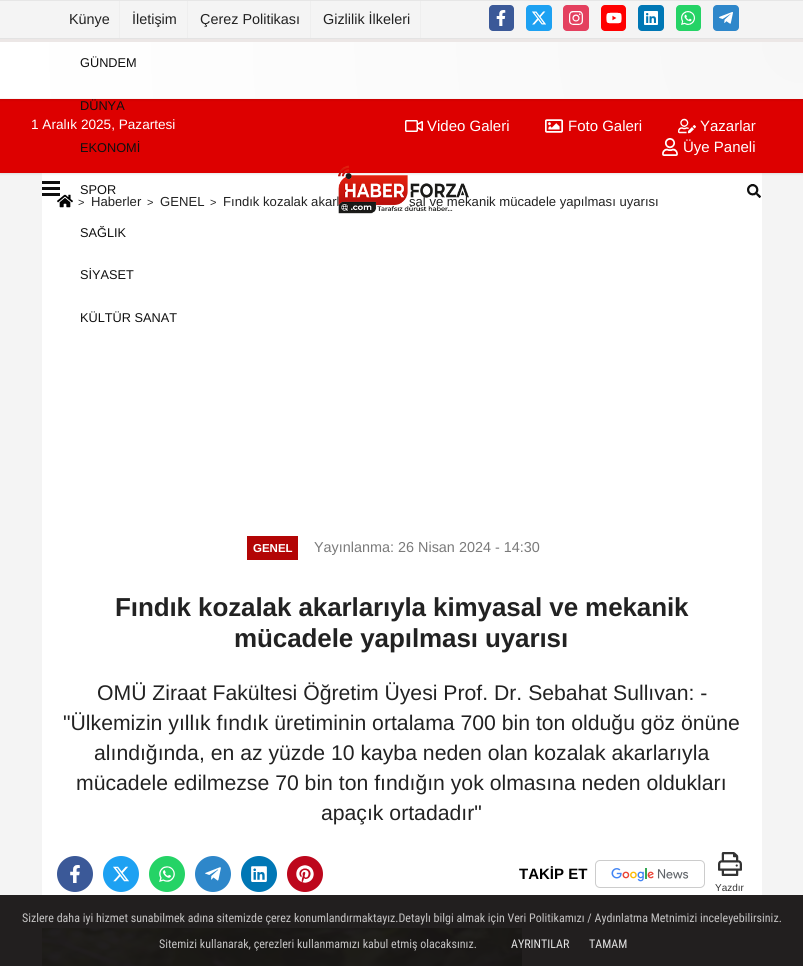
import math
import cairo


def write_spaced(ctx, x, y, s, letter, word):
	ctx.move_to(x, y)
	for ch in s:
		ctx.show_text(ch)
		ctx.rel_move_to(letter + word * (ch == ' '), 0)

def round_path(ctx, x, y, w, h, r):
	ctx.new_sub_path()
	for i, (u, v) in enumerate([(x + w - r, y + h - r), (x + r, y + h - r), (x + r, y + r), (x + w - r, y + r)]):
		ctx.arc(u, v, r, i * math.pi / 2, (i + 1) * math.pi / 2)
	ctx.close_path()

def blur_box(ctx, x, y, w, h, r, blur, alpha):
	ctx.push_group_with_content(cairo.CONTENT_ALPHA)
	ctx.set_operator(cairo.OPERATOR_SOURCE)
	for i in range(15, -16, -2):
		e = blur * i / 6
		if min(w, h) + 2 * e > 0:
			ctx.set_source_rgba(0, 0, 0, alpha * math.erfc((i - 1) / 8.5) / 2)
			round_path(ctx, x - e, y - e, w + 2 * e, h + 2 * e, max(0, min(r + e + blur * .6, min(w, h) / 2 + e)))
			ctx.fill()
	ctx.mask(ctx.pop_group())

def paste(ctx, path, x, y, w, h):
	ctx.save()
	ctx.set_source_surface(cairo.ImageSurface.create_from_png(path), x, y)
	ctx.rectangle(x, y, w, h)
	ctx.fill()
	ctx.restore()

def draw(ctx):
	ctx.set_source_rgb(0.957, 0.957, 0.957)
	ctx.paint()
	ctx.set_source_rgb(0.133, 0.122, 0.122)
	ctx.rectangle(0, 895, 803, 71)
	ctx.fill()
	ctx.set_source_rgb(0.902, 0.902, 0.902)
	ctx.rectangle(0, 0, 803, 1)
	ctx.fill()
	ctx.set_source_rgb(0.933, 0.933, 0.933)
	ctx.rectangle(119, 1, 1, 37)
	ctx.fill()
	ctx.select_font_face('Liberation Sans')
	ctx.set_font_size(14.4)
	ctx.set_source_rgb(0.133, 0.133, 0.133)
	ctx.move_to(69, 24)
	ctx.show_text('Künye')
	ctx.set_source_rgb(0.933, 0.933, 0.933)
	ctx.rectangle(187, 1, 1, 37)
	ctx.fill()
	ctx.set_source_rgb(0.133, 0.133, 0.133)
	ctx.move_to(132, 24)
	ctx.show_text('İletişim')
	ctx.set_source_rgb(0.933, 0.933, 0.933)
	ctx.rectangle(310, 1, 1, 37)
	ctx.fill()
	ctx.set_source_rgb(0.133, 0.133, 0.133)
	ctx.move_to(200, 24)
	ctx.show_text('Çerez Politikası')
	ctx.set_source_rgb(0.933, 0.933, 0.933)
	ctx.rectangle(420, 1, 1, 37)
	ctx.fill()
	ctx.set_source_rgb(0.133, 0.133, 0.133)
	ctx.move_to(323, 24)
	ctx.show_text('Gizlilik İlkeleri')
	ctx.set_source_rgb(0.231, 0.349, 0.596)
	round_path(ctx, 489, 5, 25, 26, 4)
	ctx.fill()
	paste(ctx, 'media/1.png', 496, 10, 10, 16)
	ctx.set_source_rgb(0.114, 0.631, 0.949)
	round_path(ctx, 526, 5, 26, 26, 4)
	ctx.fill()
	paste(ctx, 'media/2.png', 532, 11, 14, 14)
	ctx.set_source_rgb(0.894, 0.251, 0.373)
	round_path(ctx, 563, 5, 26, 26, 4)
	ctx.fill()
	paste(ctx, 'media/3.png', 569, 11, 14, 14)
	ctx.set_source_rgb(1, 0, 0)
	round_path(ctx, 601, 5, 25, 26, 4)
	ctx.fill()
	paste(ctx, 'media/4.png', 606, 12, 16, 12)
	ctx.set_source_rgb(0, 0.467, 0.71)
	round_path(ctx, 638, 5, 26, 26, 4)
	ctx.fill()
	paste(ctx, 'media/5.png', 644, 11, 14, 14)
	ctx.set_source_rgb(0.145, 0.827, 0.4)
	round_path(ctx, 676, 5, 25, 26, 4)
	ctx.fill()
	paste(ctx, 'media/6.png', 681, 11, 14, 14)
	ctx.set_source_rgb(0.18, 0.529, 0.792)
	round_path(ctx, 713, 5, 26, 26, 4)
	ctx.fill()
	paste(ctx, 'media/7.png', 719, 12, 14, 12)
	ctx.set_source_rgb(0.902, 0.902, 0.902)
	ctx.rectangle(0, 38, 803, 1)
	ctx.fill()
	ctx.set_source_rgb(1, 1, 1)
	ctx.rectangle(42, 173, 720, 722)
	ctx.fill()
	ctx.set_source_rgb(0, 0, 0)
	blur_box(ctx, 0, 100, 803, 74, 0, 1, 0.1)
	ctx.set_source_rgb(0.867, 0, 0)
	ctx.rectangle(0, 99, 803, 74)
	ctx.fill()
	ctx.set_source_rgb(0, 0, 0)
	blur_box(ctx, 0, 40, 803, 60, 0, 1, 0.1)
	gradient = cairo.RadialGradient(803, 42, 0, 803, 42, 805)
	gradient.add_color_stop_rgba(0, 0.969, 0.969, 0.969, 1)
	gradient.add_color_stop_rgba(1, 1, 1, 1, 1)
	ctx.set_source(gradient)
	ctx.rectangle(0, 42, 803, 56)
	ctx.fill()
	ctx.set_source_rgb(0.922, 0.906, 0.902)
	ctx.rectangle(0, 39, 803, 3)
	ctx.fill()
	ctx.set_source_rgb(0.961, 0.961, 0.961)
	ctx.rectangle(0, 98, 803, 1)
	ctx.fill()
	ctx.set_source_rgb(0.059, 0.059, 0.059)
	ctx.rectangle(42, 181, 18, 3)
	ctx.rectangle(42, 187, 18, 3)
	ctx.fill()
	paste(ctx, 'media/14.png', 57, 194, 16, 14)
	ctx.rectangle(42, 193, 18, 3)
	ctx.fill()
	ctx.set_font_size(12.75)
	for x, y, s in [
		(80, 67, 'GÜNDEM'),
		(80, 110, 'DÜNYA'),
		(80, 152, 'EKONOMİ'),
		(80, 194, 'SPOR'),
		(80, 237, 'SAĞLIK'),
		(80, 279, 'SİYASET'),
		(80, 322, 'KÜLTÜR SANAT'),
	]:
		ctx.move_to(x, y)
		ctx.show_text(s)
	ctx.set_font_size(13.1)
	ctx.set_source_rgb(0.133, 0.133, 0.133)
	ctx.move_to(223, 206)
	ctx.show_text('Fındık kozalak akarl')
	ctx.move_to(409, 206)
	ctx.show_text('sal ve mekanik mücadele yapılması uyarısı')
	paste(ctx, 'media/8.png', 338, 165, 131, 49)
	paste(ctx, 'media/9.png', 747, 184, 14, 14)
	ctx.set_font_size(13.6)
	ctx.set_source_rgb(1, 1, 1)
	ctx.move_to(31, 129)
	ctx.show_text('1 Aralık 2025, Pazartesi')
	paste(ctx, 'media/10.png', 405, 120, 18, 12)
	ctx.set_font_size(15)
	ctx.move_to(427, 131)
	ctx.show_text('Video Galeri')
	paste(ctx, 'media/11.png', 545, 119, 18, 14)
	ctx.move_to(568, 131)
	ctx.show_text('Foto Galeri')
	paste(ctx, 'media/12.png', 678, 118, 18, 16)
	ctx.move_to(700, 131)
	ctx.show_text('Yazarlar')
	paste(ctx, 'media/13.png', 662, 138, 16, 18)
	ctx.move_to(683, 152)
	ctx.show_text('Üye Paneli')
	ctx.set_font_size(11)
	ctx.set_source_rgb(0.133, 0.133, 0.133)
	ctx.move_to(78, 206)
	ctx.show_text('>')
	ctx.set_font_size(13.1)
	ctx.move_to(91, 206)
	ctx.show_text('Haberler')
	ctx.set_font_size(11)
	ctx.move_to(147, 206)
	ctx.show_text('>')
	ctx.set_font_size(13.1)
	ctx.move_to(160, 206)
	ctx.show_text('GENEL')
	ctx.set_font_size(11)
	ctx.move_to(210, 206)
	ctx.show_text('>')
	ctx.set_source_rgb(0.702, 0.02, 0.02)
	ctx.rectangle(247, 536, 51, 24)
	ctx.fill()
	ctx.select_font_face('Liberation Sans', cairo.FONT_SLANT_NORMAL, cairo.FONT_WEIGHT_BOLD)
	ctx.set_font_size(11.5)
	ctx.set_source_rgb(1, 1, 1)
	ctx.move_to(253, 552)
	ctx.show_text('GENEL')
	ctx.select_font_face('Liberation Sans')
	ctx.set_font_size(14.4)
	ctx.set_source_rgb(0.478, 0.478, 0.478)
	ctx.move_to(314, 552)
	ctx.show_text('Yayınlanma: 26 Nisan 2024 - 14:30')
	ctx.select_font_face('Liberation Sans', cairo.FONT_SLANT_NORMAL, cairo.FONT_WEIGHT_BOLD)
	ctx.set_font_size(26)
	ctx.set_source_rgb(0.133, 0.133, 0.133)
	write_spaced(ctx, 115, 616, 'Fındık kozalak akarlarıyla kimyasal ve mekanik', -0.1, 0)
	write_spaced(ctx, 234, 647, 'mücadele yapılması uyarısı', -0.1, 0)
	ctx.select_font_face('Liberation Sans')
	ctx.set_font_size(21.2)
	for x, y, s in [
		(97, 700, 'OMÜ Ziraat Fakültesi Öğretim Üyesi Prof. Dr. Sebahat Sullıvan: -'),
		(63, 730, '"Ülkemizin yıllık fındık üretiminin ortalama 700 bin ton olduğu göz önüne'),
		(94, 760, 'alındığında, en az yüzde 10 kayba neden olan kozalak akarlarıyla'),
		(76, 790, 'mücadele edilmezse 70 bin ton fındığın yok olmasına neden oldukları'),
		(321, 820, 'apaçık ortadadır"'),
	]:
		ctx.move_to(x, y)
		ctx.show_text(s)
	ctx.set_source_rgb(0.231, 0.349, 0.596)
	ctx.new_path()
	ctx.arc(75, 874, 18, 0, 2 * math.pi)
	ctx.fill()
	paste(ctx, 'media/15.png', 70, 865, 10, 18)
	ctx.set_source_rgb(0.114, 0.631, 0.949)
	ctx.arc(121, 874, 18, 0, 2 * math.pi)
	ctx.fill()
	paste(ctx, 'media/16.png', 113, 866, 16, 16)
	ctx.set_source_rgb(0.145, 0.827, 0.4)
	ctx.arc(167, 874, 18, 0, 2 * math.pi)
	ctx.fill()
	paste(ctx, 'media/17.png', 159, 866, 16, 16)
	ctx.set_source_rgb(0.18, 0.529, 0.792)
	ctx.arc(213, 874, 18, 0, 2 * math.pi)
	ctx.fill()
	paste(ctx, 'media/18.png', 205, 867, 16, 14)
	ctx.set_source_rgb(0, 0.467, 0.71)
	ctx.arc(259, 874, 18, 0, 2 * math.pi)
	ctx.fill()
	paste(ctx, 'media/19.png', 251, 866, 16, 16)
	ctx.set_source_rgb(0.741, 0.031, 0.11)
	ctx.arc(305, 874, 18, 0, 2 * math.pi)
	ctx.fill()
	paste(ctx, 'media/20.png', 296, 865, 18, 18)
	ctx.select_font_face('Liberation Sans', cairo.FONT_SLANT_NORMAL, cairo.FONT_WEIGHT_BOLD)
	ctx.set_font_size(15)
	ctx.set_source_rgb(0, 0, 0)
	ctx.move_to(519, 879)
	ctx.show_text('TAKİP ET')
	round_path(ctx, 595.5, 860.5, 109, 27, 4.5)
	ctx.set_source_rgb(0.8, 0.8, 0.8)
	ctx.set_line_width(1)
	ctx.stroke()
	paste(ctx, 'media/21.png', 611, 868, 78, 14)
	paste(ctx, 'media/22.png', 718, 852, 24, 24)
	ctx.select_font_face('Liberation Sans')
	ctx.set_font_size(10)
	ctx.set_source_rgb(0.2, 0.2, 0.2)
	ctx.move_to(715, 891)
	ctx.show_text('Yazdır')
	paste(ctx, 'media/23.png', 42, 928, 480, 38)
	ctx.select_font_face('Roboto Condensed')
	ctx.set_font_size(12)
	ctx.set_source_rgb(0.769, 0.765, 0.765)
	ctx.move_to(22, 922)
	ctx.show_text('Sizlere daha iyi hizmet sunabilmek adına sitemizde çerez konumlandırmaktayız.Detaylı bilgi almak için Veri Politikamızı / Aydınlatma Metnimizi inceleyebilirsiniz.')
	ctx.move_to(159, 948)
	ctx.show_text('Sitemizi kullanarak, çerezleri kullanmamızı kabul etmiş olacaksınız.')
	ctx.set_source_rgb(0.894, 0.894, 0.894)
	ctx.move_to(511, 948)
	ctx.show_text('AYRINTILAR')
	ctx.move_to(589, 948)
	ctx.show_text('TAMAM')


surface = cairo.ImageSurface(cairo.FORMAT_RGB24, 803, 966)
ctx = cairo.Context(surface)
options = cairo.FontOptions()
options.set_hint_metrics(cairo.HINT_METRICS_OFF)
options.set_hint_style(cairo.HINT_STYLE_NONE)
ctx.set_font_options(options)
ctx.set_miter_limit(4)
draw(ctx)
surface.write_to_png('image.png')
